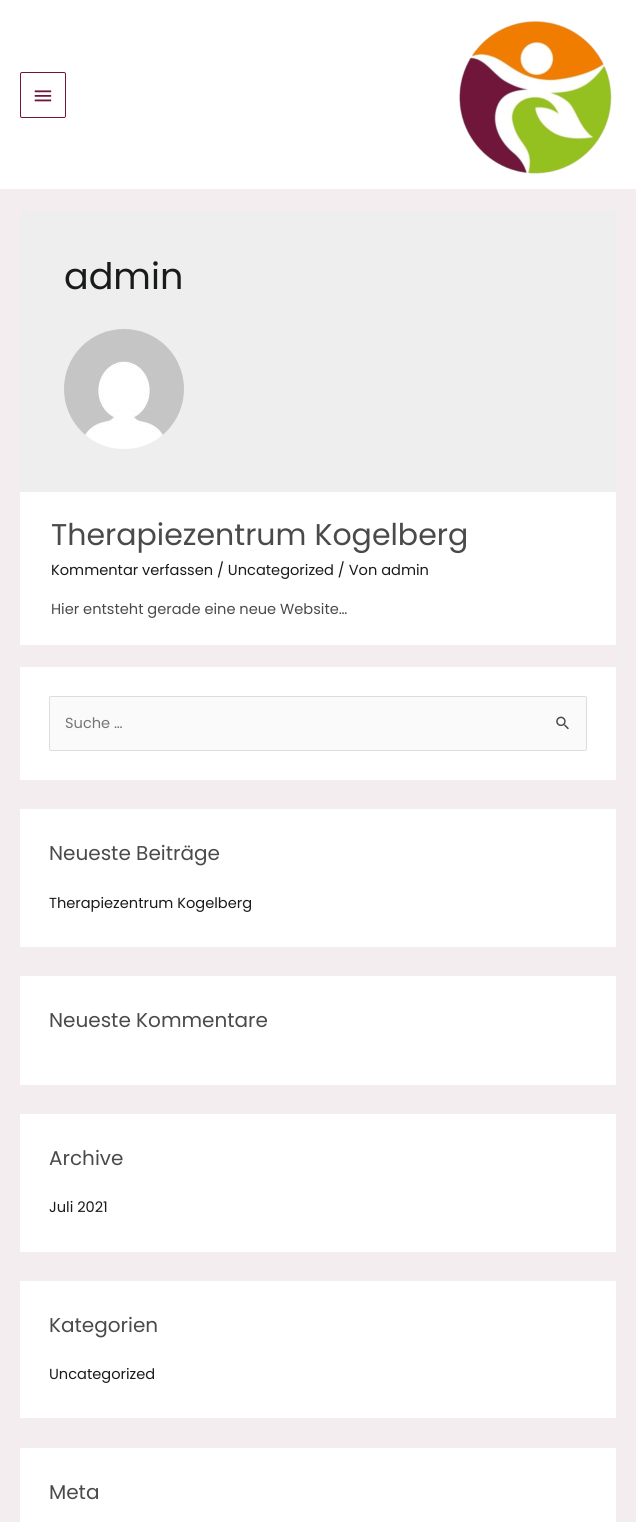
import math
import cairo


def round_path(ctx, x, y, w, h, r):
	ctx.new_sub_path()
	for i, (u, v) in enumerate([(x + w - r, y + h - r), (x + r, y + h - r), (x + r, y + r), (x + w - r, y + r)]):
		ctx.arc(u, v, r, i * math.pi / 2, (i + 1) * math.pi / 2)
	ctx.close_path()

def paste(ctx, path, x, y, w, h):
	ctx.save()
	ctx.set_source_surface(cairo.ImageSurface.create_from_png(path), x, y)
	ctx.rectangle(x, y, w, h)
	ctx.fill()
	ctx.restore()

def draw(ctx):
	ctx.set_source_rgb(0.957, 0.929, 0.941)
	ctx.paint()
	ctx.set_source_rgb(1, 1, 1)
	ctx.rectangle(0, 0, 636, 189)
	ctx.fill()
	round_path(ctx, 20.5, 72.5, 45, 45, 1.5)
	ctx.set_source_rgb(0.439, 0.086, 0.227)
	ctx.set_line_width(1)
	ctx.stroke()
	paste(ctx, 'media/1.png', 34, 90, 18, 12)
	paste(ctx, 'media/2.png', 459, 21, 153, 153)
	ctx.set_source_rgb(0.933, 0.933, 0.933)
	ctx.rectangle(20, 211, 596, 281)
	ctx.fill()
	ctx.select_font_face('Poppins')
	ctx.set_font_size(36.5)
	ctx.set_source_rgb(0.098, 0.102, 0.102)
	ctx.move_to(64, 289)
	ctx.show_text('admin')
	paste(ctx, 'media/3.png', 64, 329, 120, 120)
	ctx.set_source_rgb(1, 1, 1)
	ctx.rectangle(20, 492, 596, 153)
	ctx.fill()
	ctx.set_font_size(30)
	ctx.set_source_rgb(0.29, 0.29, 0.29)
	ctx.move_to(51, 545)
	ctx.show_text('Therapiezentrum Kogelberg')
	ctx.set_font_size(14.6)
	ctx.set_source_rgb(0.098, 0.102, 0.102)
	ctx.move_to(51, 575)
	ctx.show_text('Kommentar verfassen / Uncategorized / Von admin')
	ctx.set_source_rgb(0.29, 0.29, 0.29)
	ctx.move_to(51, 614)
	ctx.show_text('Hier entsteht gerade eine neue Website…')
	ctx.set_source_rgb(1, 1, 1)
	ctx.rectangle(20, 667, 596, 113)
	ctx.fill()
	ctx.set_source_rgb(0.98, 0.98, 0.98)
	round_path(ctx, 49.5, 696.5, 537, 54, 1.5)
	ctx.fill_preserve()
	ctx.set_source_rgb(0.867, 0.867, 0.867)
	ctx.stroke()
	ctx.set_source_rgb(0.459, 0.459, 0.459)
	ctx.move_to(65, 728)
	ctx.show_text('Suche …')
	paste(ctx, 'media/4.png', 556, 716, 13, 14)
	ctx.set_source_rgb(1, 1, 1)
	ctx.rectangle(20, 809, 596, 138)
	ctx.fill()
	ctx.set_font_size(20)
	ctx.set_source_rgb(0.29, 0.29, 0.29)
	ctx.move_to(49, 860)
	ctx.show_text('Neueste Beiträge')
	ctx.set_font_size(14.6)
	ctx.set_source_rgb(0.098, 0.102, 0.102)
	ctx.move_to(49, 908)
	ctx.show_text('Therapiezentrum Kogelberg')
	ctx.set_source_rgb(1, 1, 1)
	ctx.rectangle(20, 976, 596, 109)
	ctx.fill()
	ctx.set_font_size(20)
	ctx.set_source_rgb(0.29, 0.29, 0.29)
	ctx.move_to(49, 1027)
	ctx.show_text('Neueste Kommentare')
	ctx.set_source_rgb(1, 1, 1)
	ctx.rectangle(20, 1114, 596, 138)
	ctx.fill()
	ctx.set_source_rgb(0.29, 0.29, 0.29)
	ctx.move_to(49, 1165)
	ctx.show_text('Archive')
	ctx.set_font_size(14.6)
	ctx.set_source_rgb(0.098, 0.102, 0.102)
	ctx.move_to(49, 1212)
	ctx.show_text('Juli 2021')
	ctx.set_source_rgb(1, 1, 1)
	ctx.rectangle(20, 1281, 596, 137)
	ctx.fill()
	ctx.set_font_size(20)
	ctx.set_source_rgb(0.29, 0.29, 0.29)
	ctx.move_to(49, 1332)
	ctx.show_text('Kategorien')
	ctx.set_font_size(14.6)
	ctx.set_source_rgb(0.098, 0.102, 0.102)
	ctx.move_to(49, 1379)
	ctx.show_text('Uncategorized')
	ctx.set_source_rgb(1, 1, 1)
	ctx.rectangle(20, 1448, 596, 74)
	ctx.fill()
	ctx.set_font_size(20)
	ctx.set_source_rgb(0.29, 0.29, 0.29)
	ctx.move_to(49, 1499)
	ctx.show_text('Meta')


surface = cairo.ImageSurface(cairo.FORMAT_RGB24, 636, 1522)
ctx = cairo.Context(surface)
options = cairo.FontOptions()
options.set_hint_metrics(cairo.HINT_METRICS_OFF)
options.set_hint_style(cairo.HINT_STYLE_NONE)
ctx.set_font_options(options)
ctx.set_miter_limit(4)
draw(ctx)
surface.write_to_png('image.png')
